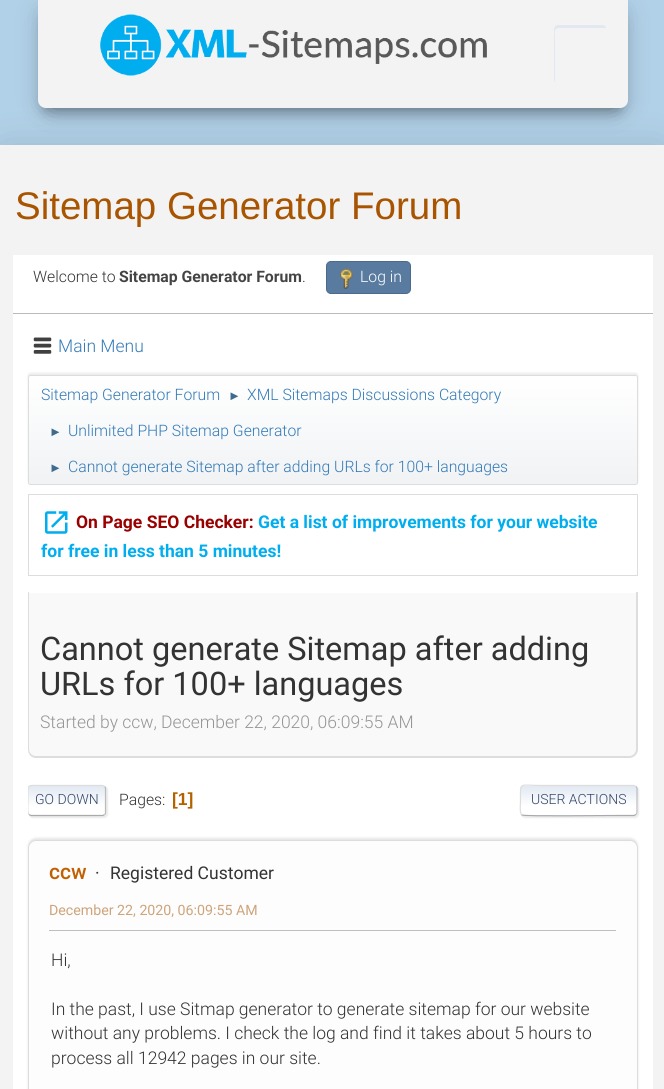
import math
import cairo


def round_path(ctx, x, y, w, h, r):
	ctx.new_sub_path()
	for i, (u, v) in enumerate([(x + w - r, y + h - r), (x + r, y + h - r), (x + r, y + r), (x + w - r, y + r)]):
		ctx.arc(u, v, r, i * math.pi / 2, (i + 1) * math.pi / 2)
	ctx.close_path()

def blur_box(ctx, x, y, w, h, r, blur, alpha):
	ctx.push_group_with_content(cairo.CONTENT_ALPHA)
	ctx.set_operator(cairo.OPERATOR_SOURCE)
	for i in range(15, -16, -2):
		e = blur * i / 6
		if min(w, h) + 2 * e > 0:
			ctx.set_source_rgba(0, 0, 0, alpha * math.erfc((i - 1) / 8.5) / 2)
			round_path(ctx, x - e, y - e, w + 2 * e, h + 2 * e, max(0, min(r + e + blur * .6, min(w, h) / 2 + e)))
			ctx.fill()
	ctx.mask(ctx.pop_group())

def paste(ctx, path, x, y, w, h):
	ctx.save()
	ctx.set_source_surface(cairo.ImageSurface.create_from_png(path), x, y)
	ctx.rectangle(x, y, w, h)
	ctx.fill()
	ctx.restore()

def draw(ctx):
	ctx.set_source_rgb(1, 1, 1)
	ctx.paint()
	ctx.set_source_rgb(0.694, 0.82, 0.91)
	ctx.rectangle(0, 0, 664, 145)
	ctx.fill()
	ctx.set_source_rgb(0, 0, 0)
	blur_box(ctx, 44, 16, 577, 95, 1, 6, 0.2)
	blur_box(ctx, -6, 146, 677, 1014, 14, 19, 0.12)
	ctx.set_source_rgb(0.953, 0.953, 0.953)
	round_path(ctx, 0, 145, 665, 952, 8)
	ctx.fill()
	ctx.set_source_rgb(0, 0, 0)
	blur_box(ctx, 38, 4, 590, 107, 8, 12.5, 0.12)
	blur_box(ctx, 53, 28, 560, 77, 0, 12.5, 0.42)
	ctx.set_source_rgb(0.953, 0.953, 0.953)
	ctx.new_path()
	ctx.move_to(38, 0)
	ctx.line_to(628, 0)
	ctx.line_to(628, 100)
	ctx.curve_to(628, 104.5, 624.5, 108, 620, 108)
	ctx.line_to(46, 108)
	ctx.curve_to(41.5, 108, 38, 104.5, 38, 100)
	ctx.close_path()
	ctx.fill()
	paste(ctx, 'media/1.png', 100, 14, 387, 62)
	ctx.set_source_rgb(0.886, 0.91, 0.937)
	ctx.new_path()
	ctx.move_to(559, 28)
	ctx.line_to(606, 28)
	ctx.curve_to(606, 26, 604, 25, 602, 25)
	ctx.line_to(558, 25)
	ctx.curve_to(556, 25, 554, 27, 554, 29)
	ctx.line_to(554, 79)
	ctx.curve_to(554, 80, 554, 81, 555, 82)
	ctx.line_to(555, 39)
	ctx.curve_to(555, 35, 553, 28, 559, 28)
	ctx.close_path()
	ctx.fill()
	ctx.select_font_face('Liberation Sans')
	ctx.set_font_size(38.5)
	ctx.set_source_rgb(0.659, 0.329, 0)
	ctx.move_to(15, 219)
	ctx.show_text('Sitemap Generator Forum')
	ctx.set_source_rgb(1, 1, 1)
	ctx.rectangle(13, 255, 640, 58)
	ctx.fill()
	ctx.set_source_rgb(0.733, 0.733, 0.733)
	ctx.rectangle(13, 313, 640, 1)
	ctx.fill()
	ctx.select_font_face('Roboto Light')
	ctx.set_font_size(15.75)
	ctx.set_source_rgb(0.2, 0.2, 0.2)
	ctx.move_to(33, 282)
	ctx.show_text('Welcome to')
	ctx.select_font_face('Roboto', cairo.FONT_SLANT_NORMAL, cairo.FONT_WEIGHT_BOLD)
	ctx.set_source_rgb(0.267, 0.267, 0.267)
	ctx.move_to(119, 282)
	ctx.show_text('Sitemap Generator Forum')
	ctx.select_font_face('Roboto Light')
	ctx.set_source_rgb(0.2, 0.2, 0.2)
	ctx.move_to(302, 282)
	ctx.show_text('.')
	ctx.set_source_rgb(0.349, 0.482, 0.624)
	round_path(ctx, 326.5, 261.5, 84, 32, 4.5)
	ctx.fill_preserve()
	ctx.set_source_rgb(0.29, 0.42, 0.549)
	ctx.set_line_width(1)
	ctx.stroke()
	paste(ctx, 'media/2.png', 339, 268, 14, 21)
	ctx.set_source_rgb(1, 1, 1)
	ctx.move_to(360, 282)
	ctx.show_text('Log in')
	ctx.rectangle(13, 314, 640, 775)
	ctx.fill()
	paste(ctx, 'media/3.png', 33, 337, 19, 17)
	ctx.set_font_size(17.5)
	ctx.set_source_rgb(0.2, 0.478, 0.718)
	ctx.move_to(58, 352)
	ctx.show_text('Main Menu')
	ctx.set_source_rgb(0, 0, 0)
	blur_box(ctx, 28, 373, 610, 110, 2.5, 1, 0.08)
	ctx.save()
	round_path(ctx, 28, 375, 610, 110, 2.5)
	ctx.clip()
	gradient = cairo.LinearGradient(333, 376, 333, 484)
	gradient.add_color_stop_rgba(0, 1, 1, 1, 1)
	gradient.add_color_stop_rgba(0.95, 0.945, 0.953, 0.961, 1)
	ctx.set_source(gradient)
	ctx.rectangle(28, 376, 610, 108)
	ctx.fill()
	ctx.restore()
	round_path(ctx, 28.5, 375.5, 609, 109, 2)
	ctx.set_source_rgb(0.867, 0.867, 0.867)
	ctx.stroke()
	ctx.set_font_size(15.75)
	ctx.set_source_rgb(0.2, 0.478, 0.718)
	ctx.move_to(41, 400)
	ctx.show_text('Sitemap Generator Forum')
	ctx.select_font_face('Liberation Sans')
	ctx.set_font_size(13)
	ctx.set_source_rgb(0.247, 0.42, 0.549)
	ctx.move_to(228, 400)
	ctx.show_text('►')
	ctx.select_font_face('Roboto Light')
	ctx.set_font_size(15.75)
	ctx.set_source_rgb(0.2, 0.478, 0.718)
	ctx.move_to(247, 400)
	ctx.show_text('XML Sitemaps Discussions Category')
	ctx.select_font_face('Liberation Sans')
	ctx.set_font_size(13)
	ctx.set_source_rgb(0.247, 0.42, 0.549)
	ctx.move_to(49, 436)
	ctx.show_text('►')
	ctx.select_font_face('Roboto Light')
	ctx.set_font_size(15.75)
	ctx.set_source_rgb(0.2, 0.478, 0.718)
	ctx.move_to(68, 436)
	ctx.show_text('Unlimited PHP Sitemap Generator')
	ctx.select_font_face('Liberation Sans')
	ctx.set_font_size(13)
	ctx.set_source_rgb(0.247, 0.42, 0.549)
	ctx.move_to(49, 472)
	ctx.show_text('►')
	ctx.select_font_face('Roboto Light')
	ctx.set_font_size(15.75)
	ctx.set_source_rgb(0.2, 0.478, 0.718)
	ctx.move_to(68, 472)
	ctx.show_text('Cannot generate Sitemap after adding URLs for 100+ languages')
	ctx.rectangle(28.5, 494.5, 609, 81)
	ctx.set_source_rgb(0.867, 0.867, 0.867)
	ctx.stroke()
	paste(ctx, 'media/4.png', 45, 511, 23, 23)
	ctx.select_font_face('Roboto', cairo.FONT_SLANT_NORMAL, cairo.FONT_WEIGHT_BOLD)
	ctx.set_font_size(17.5)
	ctx.set_source_rgb(0.6, 0, 0)
	ctx.move_to(76, 528)
	ctx.show_text('On Page SEO Checker:')
	ctx.set_source_rgb(0, 0.682, 0.937)
	ctx.move_to(258, 528)
	ctx.show_text('Get a list of improvements for your website')
	ctx.move_to(41, 557)
	ctx.show_text('for free in less than 5 minutes!')
	ctx.set_source_rgb(0.973, 0.973, 0.973)
	ctx.new_path()
	ctx.move_to(28, 593)
	ctx.line_to(638, 593)
	ctx.line_to(638, 749)
	ctx.curve_to(638, 754, 634, 758, 629, 758)
	ctx.line_to(37, 758)
	ctx.curve_to(32, 758, 28, 754, 28, 749)
	ctx.close_path()
	ctx.fill()
	ctx.set_source_rgb(0.867, 0.867, 0.867)
	ctx.set_fill_rule(cairo.FILL_RULE_EVEN_ODD)
	ctx.new_path()
	ctx.move_to(28, 592)
	ctx.line_to(638, 592)
	ctx.line_to(638, 749)
	ctx.curve_to(638, 754, 634, 758, 629, 758)
	ctx.line_to(36, 758)
	ctx.curve_to(31, 758, 28, 754, 28, 749)
	ctx.close_path()
	ctx.move_to(29, 592)
	ctx.line_to(636, 592)
	ctx.line_to(636, 749)
	ctx.curve_to(636, 753, 633, 756, 629, 756)
	ctx.line_to(36, 756)
	ctx.curve_to(32, 756, 29, 753, 29, 749)
	ctx.close_path()
	ctx.fill()
	ctx.select_font_face('Roboto')
	ctx.set_font_size(32.5)
	ctx.set_source_rgb(0.2, 0.2, 0.2)
	ctx.move_to(40, 660)
	ctx.show_text('Cannot generate Sitemap after adding')
	ctx.move_to(40, 695)
	ctx.show_text('URLs for 100+ languages')
	ctx.select_font_face('Roboto Light')
	ctx.set_font_size(17.5)
	ctx.set_source_rgb(0.584, 0.584, 0.584)
	ctx.move_to(40, 728)
	ctx.show_text('Started by ccw, December 22, 2020, 06:09:55 AM')
	ctx.set_source_rgb(0.867, 0.867, 0.867)
	blur_box(ctx, 29, 786, 79, 32, 4, 0.5, 0.57)
	ctx.save()
	ctx.set_fill_rule(cairo.FILL_RULE_WINDING)
	round_path(ctx, 28, 785, 78, 31, 4)
	ctx.clip()
	gradient = cairo.LinearGradient(67, 786, 67, 815)
	gradient.add_color_stop_rgba(0, 0.886, 0.914, 0.953, 1)
	gradient.add_color_stop_rgba(0.7, 1, 1, 1, 1)
	ctx.set_source(gradient)
	ctx.rectangle(28, 786, 78, 29)
	ctx.fill()
	ctx.restore()
	ctx.new_path()
	ctx.move_to(104.5, 786.5)
	ctx.curve_to(105.5, 787, 105.5, 788, 105.5, 789)
	ctx.line_to(105.5, 812.5)
	ctx.curve_to(105.5, 813.5, 105.5, 814, 104.5, 814.5)
	ctx.set_source_rgb(0.733, 0.733, 0.733)
	ctx.set_line_width(1.2)
	ctx.stroke()
	ctx.new_path()
	ctx.move_to(104.5, 814.5)
	ctx.line_to(103, 815.5)
	ctx.line_to(31, 815.5)
	ctx.line_to(29, 814.5)
	ctx.set_source_rgb(0.667, 0.667, 0.667)
	ctx.stroke()
	ctx.save()
	ctx.set_fill_rule(cairo.FILL_RULE_WINDING)
	ctx.rectangle(28, 776, 610, 49)
	ctx.clip()
	ctx.new_path()
	ctx.move_to(29, 814.5)
	ctx.curve_to(27, 812.5, 28, 803.5, 28, 800.5)
	ctx.curve_to(28, 783, 25.5, 785.5, 43, 785.5)
	ctx.line_to(102.5, 785.5)
	ctx.line_to(104.5, 786.5)
	ctx.set_source_rgb(0.867, 0.867, 0.867)
	ctx.stroke()
	ctx.restore()
	ctx.set_font_size(14)
	ctx.set_source_rgb(0.2, 0.267, 0.4)
	ctx.move_to(35, 804)
	ctx.show_text('GO DOWN')
	ctx.set_font_size(15.75)
	ctx.set_source_rgb(0.2, 0.2, 0.2)
	ctx.move_to(119, 805)
	ctx.show_text('Pages:')
	ctx.select_font_face('Liberation Sans', cairo.FONT_SLANT_NORMAL, cairo.FONT_WEIGHT_BOLD)
	ctx.set_font_size(17.5)
	ctx.set_source_rgb(0.706, 0.38, 0)
	ctx.move_to(172, 805)
	ctx.show_text('[1]')
	ctx.save()
	ctx.new_path()
	ctx.move_to(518, 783)
	ctx.line_to(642, 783)
	ctx.line_to(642, 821)
	ctx.line_to(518, 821)
	ctx.close_path()
	ctx.move_to(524, 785)
	ctx.line_to(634, 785)
	ctx.curve_to(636, 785, 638, 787, 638, 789)
	ctx.line_to(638, 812)
	ctx.curve_to(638, 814, 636, 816, 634, 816)
	ctx.line_to(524, 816)
	ctx.curve_to(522, 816, 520, 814, 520, 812)
	ctx.line_to(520, 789)
	ctx.curve_to(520, 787, 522, 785, 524, 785)
	ctx.close_path()
	ctx.clip()
	ctx.set_source_rgb(0.867, 0.867, 0.867)
	blur_box(ctx, 521, 786, 118, 32, 4, 0.5, 0.57)
	ctx.restore()
	ctx.set_source_rgb(1, 1, 1)
	round_path(ctx, 520, 785, 118, 31, 4)
	ctx.fill()
	ctx.save()
	ctx.set_fill_rule(cairo.FILL_RULE_WINDING)
	round_path(ctx, 520, 785, 118, 31, 4)
	ctx.clip()
	gradient = cairo.LinearGradient(579, 786, 579, 815)
	gradient.add_color_stop_rgba(0, 0.886, 0.914, 0.953, 1)
	gradient.add_color_stop_rgba(0.7, 1, 1, 1, 1)
	ctx.set_source(gradient)
	ctx.rectangle(520, 786, 118, 29)
	ctx.fill()
	gradient = cairo.LinearGradient(579, 815, 579, 844)
	gradient.add_color_stop_rgba(0, 0.886, 0.914, 0.953, 1)
	gradient.add_color_stop_rgba(0.7, 1, 1, 1, 1)
	ctx.set_source(gradient)
	ctx.rectangle(520, 815, 118, 1)
	ctx.fill()
	ctx.restore()
	ctx.new_path()
	ctx.move_to(636, 786.5)
	ctx.curve_to(636.5, 787, 637, 788, 637, 789)
	ctx.line_to(637, 812.5)
	ctx.curve_to(637, 813.5, 636.5, 814, 636, 814.5)
	ctx.set_source_rgb(0.733, 0.733, 0.733)
	ctx.stroke()
	ctx.new_path()
	ctx.move_to(636, 814.5)
	ctx.line_to(634, 815.5)
	ctx.line_to(615.5, 815.5)
	ctx.curve_to(605.5, 815.5, 524.5, 816.5, 522, 815)
	ctx.line_to(521.5, 814.5)
	ctx.set_source_rgb(0.667, 0.667, 0.667)
	ctx.stroke()
	ctx.new_path()
	ctx.move_to(521.5, 814.5)
	ctx.curve_to(519.5, 812.5, 520.5, 803.5, 520.5, 800.5)
	ctx.curve_to(520.5, 781, 518.5, 785.5, 542, 785.5)
	ctx.line_to(634, 785.5)
	ctx.line_to(636, 786.5)
	ctx.set_source_rgb(0.867, 0.867, 0.867)
	ctx.stroke()
	ctx.select_font_face('Roboto Light')
	ctx.set_font_size(14)
	ctx.set_source_rgb(0.2, 0.267, 0.4)
	ctx.move_to(531, 804)
	ctx.show_text('USER ACTIONS')
	ctx.set_source_rgb(0, 0, 0)
	blur_box(ctx, 28, 838, 610, 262, 8, 1, 0.1)
	ctx.set_source_rgb(0.992, 0.992, 0.992)
	round_path(ctx, 28.5, 840.5, 609, 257, 7.5)
	ctx.fill_preserve()
	ctx.set_source_rgb(0.867, 0.867, 0.867)
	ctx.set_line_width(1)
	ctx.stroke()
	ctx.select_font_face('Roboto Medium')
	ctx.set_font_size(21)
	ctx.set_source_rgb(0.753, 0.376, 0.008)
	ctx.move_to(49, 879)
	ctx.show_text('ccw')
	ctx.select_font_face('Roboto')
	ctx.set_font_size(17.5)
	ctx.set_source_rgb(0.2, 0.2, 0.2)
	ctx.move_to(95, 879)
	ctx.show_text('·')
	ctx.move_to(110, 879)
	ctx.show_text('Registered Customer')
	ctx.set_font_size(14.2)
	ctx.set_source_rgb(0.804, 0.643, 0.482)
	ctx.move_to(49, 915)
	ctx.show_text('December 22, 2020, 06:09:55 AM')
	ctx.set_source_rgb(0.749, 0.749, 0.749)
	ctx.rectangle(49, 930, 567, 1)
	ctx.fill()
	ctx.select_font_face('Roboto Light')
	ctx.set_font_size(17.5)
	ctx.set_source_rgb(0.2, 0.2, 0.2)
	for x, y, s in [
		(51, 966, 'Hi,'),
		(51, 1015, 'In the past, I use Sitmap generator to generate sitemap for our website'),
		(51, 1039, 'without any problems. I check the log and find it takes about 5 hours to'),
		(51, 1064, 'process all 12942 pages in our site.'),
	]:
		ctx.move_to(x, y)
		ctx.show_text(s)


surface = cairo.ImageSurface(cairo.FORMAT_RGB24, 664, 1089)
ctx = cairo.Context(surface)
options = cairo.FontOptions()
options.set_hint_metrics(cairo.HINT_METRICS_OFF)
options.set_hint_style(cairo.HINT_STYLE_NONE)
ctx.set_font_options(options)
ctx.set_miter_limit(4)
draw(ctx)
surface.write_to_png('image.png')
